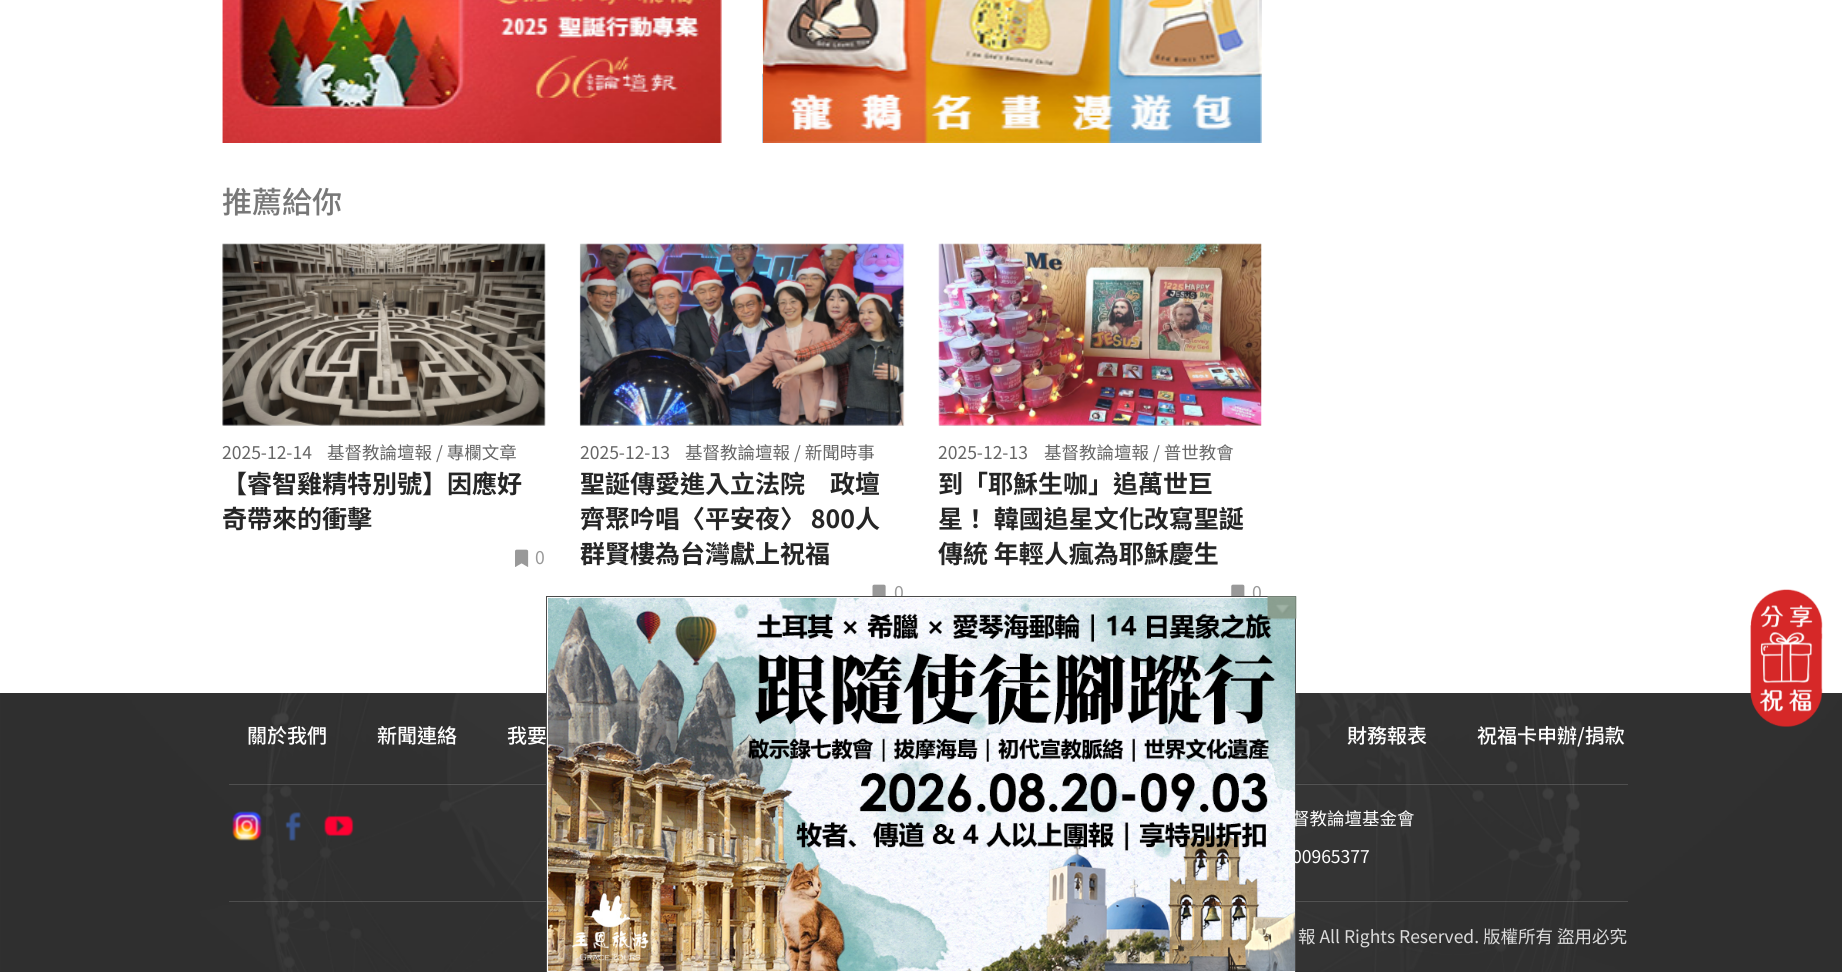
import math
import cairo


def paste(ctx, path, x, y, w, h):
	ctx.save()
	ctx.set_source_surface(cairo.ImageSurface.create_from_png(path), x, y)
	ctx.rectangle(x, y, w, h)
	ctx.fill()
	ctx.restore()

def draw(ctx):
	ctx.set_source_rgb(1, 1, 1)
	ctx.paint()
	paste(ctx, 'media/1.png', 222, 0, 500, 143)
	paste(ctx, 'media/2.png', 720, 0, 2, 143)
	paste(ctx, 'media/3.png', 762, 0, 1, 143)
	paste(ctx, 'media/4.png', 763, 0, 499, 143)
	ctx.select_font_face('Noto Sans TC Medium')
	ctx.set_font_size(30)
	ctx.set_source_rgb(0.471, 0.471, 0.471)
	ctx.move_to(222, 213)
	ctx.show_text('推薦給你')
	ctx.set_source_rgb(0.949, 0.949, 0.949)
	ctx.rectangle(223, 244, 322, 181)
	ctx.fill()
	paste(ctx, 'media/5.png', 222, 243, 324, 183)
	ctx.set_source_rgba(0.133, 0.141, 0.149, 0.1)
	ctx.rectangle(223, 425, 322, 1)
	ctx.fill()
	ctx.select_font_face('Noto Sans TC')
	ctx.set_font_size(17.5)
	ctx.set_source_rgb(0.4, 0.4, 0.4)
	ctx.move_to(222, 459)
	ctx.show_text('2025-12-14')
	ctx.move_to(327, 459)
	ctx.show_text('基督教論壇報 / 專欄文章')
	ctx.select_font_face('Noto Sans TC', cairo.FONT_SLANT_NORMAL, cairo.FONT_WEIGHT_BOLD)
	ctx.set_font_size(25)
	ctx.set_source_rgb(0.149, 0.149, 0.149)
	ctx.move_to(222, 493)
	ctx.show_text('【睿智雞精特別號】因應好')
	ctx.move_to(222, 528)
	ctx.show_text('奇帶來的衝擊')
	paste(ctx, 'media/6.png', 515, 549, 14, 18)
	ctx.select_font_face('Noto Sans TC')
	ctx.set_font_size(17.5)
	ctx.set_source_rgb(0.6, 0.6, 0.6)
	ctx.move_to(535, 564)
	ctx.show_text('0')
	ctx.set_source_rgb(0.949, 0.949, 0.949)
	ctx.rectangle(580, 244, 324, 181)
	ctx.fill()
	paste(ctx, 'media/7.png', 579, 243, 326, 183)
	ctx.set_source_rgba(0.133, 0.141, 0.149, 0.1)
	ctx.rectangle(580, 425, 324, 1)
	ctx.fill()
	ctx.set_source_rgb(0.4, 0.4, 0.4)
	ctx.move_to(580, 459)
	ctx.show_text('2025-12-13')
	ctx.move_to(685, 459)
	ctx.show_text('基督教論壇報 / 新聞時事')
	ctx.select_font_face('Noto Sans TC', cairo.FONT_SLANT_NORMAL, cairo.FONT_WEIGHT_BOLD)
	ctx.set_font_size(25)
	ctx.set_source_rgb(0.149, 0.149, 0.149)
	for x, y, s in [
		(580, 493, '聖誕傳愛進入立法院　政壇'),
		(580, 528, '齊聚吟唱〈平安夜〉 800人'),
		(580, 563, '群賢樓為台灣獻上祝福'),
	]:
		ctx.move_to(x, y)
		ctx.show_text(s)
	paste(ctx, 'media/8.png', 872, 584, 14, 12)
	ctx.select_font_face('Noto Sans TC')
	ctx.set_font_size(17.5)
	ctx.set_source_rgb(0.6, 0.6, 0.6)
	ctx.move_to(894, 599)
	ctx.show_text('0')
	ctx.set_source_rgb(0.949, 0.949, 0.949)
	ctx.rectangle(939, 244, 322, 181)
	ctx.fill()
	paste(ctx, 'media/9.png', 938, 243, 324, 183)
	ctx.set_source_rgba(0.133, 0.141, 0.149, 0.1)
	ctx.rectangle(939, 425, 322, 1)
	ctx.fill()
	ctx.set_source_rgb(0.4, 0.4, 0.4)
	ctx.move_to(938, 459)
	ctx.show_text('2025-12-13')
	ctx.move_to(1044, 459)
	ctx.show_text('基督教論壇報 / 普世教會')
	ctx.select_font_face('Noto Sans TC', cairo.FONT_SLANT_NORMAL, cairo.FONT_WEIGHT_BOLD)
	ctx.set_font_size(25)
	ctx.set_source_rgb(0.149, 0.149, 0.149)
	for x, y, s in [
		(938, 493, '到「耶穌生咖」追萬世巨'),
		(938, 528, '星！ 韓國追星文化改寫聖誕'),
		(938, 563, '傳統 年輕人瘋為耶穌慶生'),
	]:
		ctx.move_to(x, y)
		ctx.show_text(s)
	paste(ctx, 'media/10.png', 1231, 584, 14, 12)
	ctx.select_font_face('Noto Sans TC')
	ctx.set_font_size(17.5)
	ctx.set_source_rgb(0.6, 0.6, 0.6)
	ctx.move_to(1252, 599)
	ctx.show_text('0')
	paste(ctx, 'media/14.png', 0, 693, 1842, 279)
	ctx.set_source_rgba(0.133, 0.141, 0.149, 0.15)
	ctx.rectangle(267, 783, 1308, 1)
	ctx.fill()
	ctx.set_source_rgba(1, 1, 1, 0.15)
	ctx.rectangle(229, 784, 1399, 1)
	ctx.fill()
	ctx.set_source_rgba(0.133, 0.141, 0.149, 0.15)
	ctx.rectangle(264, 900, 1313, 1)
	ctx.fill()
	ctx.set_source_rgba(1, 1, 1, 0.15)
	ctx.rectangle(229, 901, 1399, 1)
	ctx.fill()
	ctx.set_source_rgb(1, 1, 1)
	ctx.rectangle(546.5, 596.5, 749, 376)
	ctx.fill_preserve()
	ctx.set_source_rgb(0.29, 0.29, 0.29)
	ctx.set_line_width(1)
	ctx.stroke()
	ctx.set_source_rgb(1, 1, 1)
	ctx.move_to(1292, 825)
	ctx.show_text('督教論壇基金會')
	ctx.move_to(1292, 863)
	ctx.show_text('00965377')
	paste(ctx, 'media/11.png', 548, 598, 747, 373)
	paste(ctx, 'media/12.png', 1267, 596, 30, 24)
	paste(ctx, 'media/13.png', 1750, 589, 73, 138)
	ctx.select_font_face('Noto Sans TC Medium')
	ctx.set_font_size(20)
	for x, y, s in [
		(247, 743, '關於我們'),
		(377, 743, '新聞連絡'),
		(507, 743, '我要'),
		(1347, 743, '財務報表'),
		(1477, 743, '祝福卡申辦/捐款'),
	]:
		ctx.move_to(x, y)
		ctx.show_text(s)
	paste(ctx, 'media/15.png', 232, 811, 30, 30)
	paste(ctx, 'media/16.png', 285, 812, 16, 29)
	paste(ctx, 'media/17.png', 324, 815, 30, 21)
	ctx.select_font_face('Noto Sans TC')
	ctx.set_font_size(17.5)
	ctx.set_source_rgb(0.859, 0.859, 0.859)
	ctx.move_to(1298, 943)
	ctx.show_text('報 All Rights Reserved. 版權所有 盜用必究')


surface = cairo.ImageSurface(cairo.FORMAT_RGB24, 1842, 972)
ctx = cairo.Context(surface)
options = cairo.FontOptions()
options.set_hint_metrics(cairo.HINT_METRICS_OFF)
options.set_hint_style(cairo.HINT_STYLE_NONE)
ctx.set_font_options(options)
ctx.set_miter_limit(4)
draw(ctx)
surface.write_to_png('image.png')
